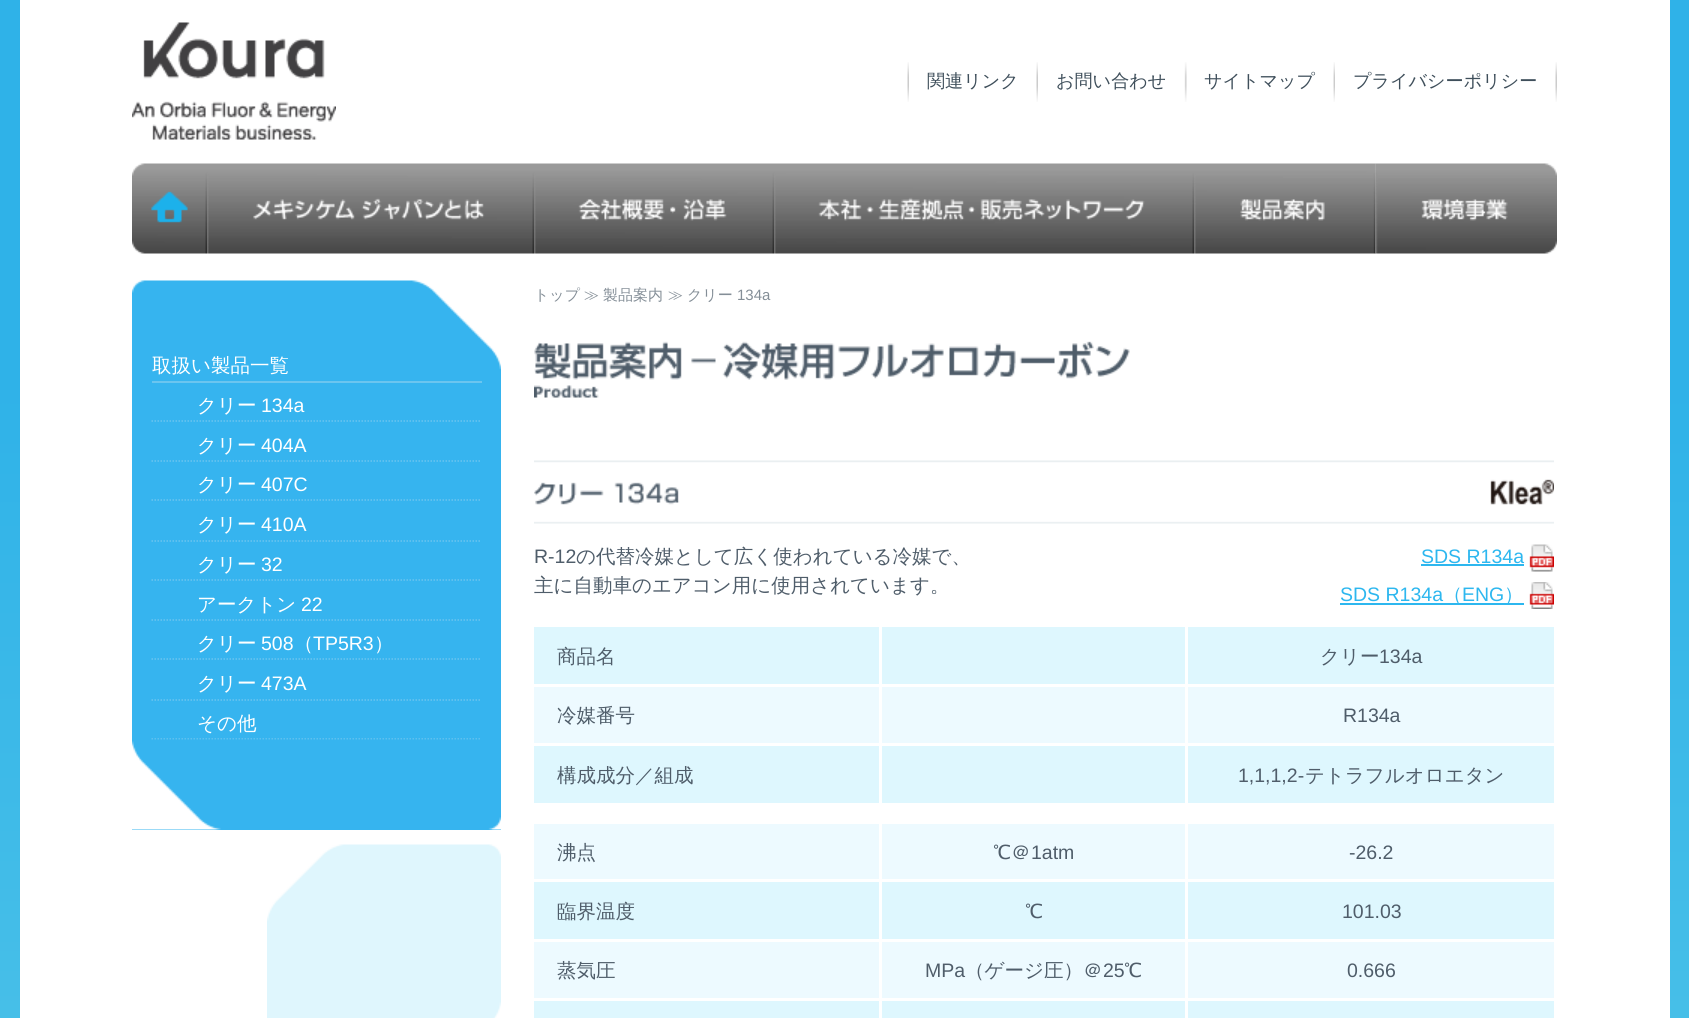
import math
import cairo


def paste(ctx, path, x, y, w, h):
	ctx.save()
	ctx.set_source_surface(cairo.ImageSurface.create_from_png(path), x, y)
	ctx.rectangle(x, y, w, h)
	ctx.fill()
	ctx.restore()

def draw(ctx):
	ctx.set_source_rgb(1, 1, 1)
	ctx.paint()
	paste(ctx, 'media/1.png', 0, 0, 1689, 1018)
	ctx.set_source_rgb(1, 1, 1)
	ctx.rectangle(20, 0, 1650, 1018)
	ctx.fill()
	paste(ctx, 'media/2.png', 132, 22, 204, 118)
	paste(ctx, 'media/3.png', 1555, 62, 2, 40)
	paste(ctx, 'media/3.png', 907, 62, 2, 40)
	ctx.select_font_face('WenQuanYi Zen Hei Medium')
	ctx.set_font_size(18.1)
	ctx.set_source_rgb(0.247, 0.31, 0.357)
	ctx.move_to(927, 87)
	ctx.show_text('関連リンク')
	paste(ctx, 'media/3.png', 1036, 62, 2, 40)
	ctx.move_to(1056, 87)
	ctx.show_text('お問い合わせ')
	paste(ctx, 'media/4.png', 1184, 62, 3, 40)
	ctx.move_to(1204, 87)
	ctx.show_text('サイトマップ')
	paste(ctx, 'media/5.png', 1333, 62, 2, 40)
	ctx.move_to(1353, 87)
	ctx.show_text('プライバシーポリシー')
	paste(ctx, 'media/6.png', 132, 163, 75, 91)
	paste(ctx, 'media/7.png', 207, 163, 327, 91)
	paste(ctx, 'media/8.png', 534, 163, 240, 91)
	paste(ctx, 'media/9.png', 774, 163, 420, 91)
	paste(ctx, 'media/10.png', 1194, 163, 182, 91)
	paste(ctx, 'media/11.png', 1375, 163, 182, 91)
	ctx.set_source_rgb(0.212, 0.706, 0.937)
	ctx.rectangle(132, 370, 369, 460)
	ctx.fill()
	paste(ctx, 'media/12.png', 132, 280, 369, 90)
	ctx.set_source_rgb(0.42, 0.773, 0.937)
	ctx.rectangle(152, 381, 330, 2)
	ctx.fill()
	ctx.set_font_size(19.5)
	ctx.set_source_rgb(1, 1, 1)
	ctx.move_to(152, 372)
	ctx.show_text('取扱い製品一覧')
	ctx.new_path()
	ctx.move_to(151.5, 421)
	ctx.line_to(481.5, 421)
	ctx.set_source_rgb(0.42, 0.773, 0.937)
	ctx.set_line_width(1.5)
	ctx.set_dash([1.5, 1.5])
	ctx.stroke()
	ctx.set_source_rgb(1, 1, 1)
	ctx.move_to(197, 412)
	ctx.show_text('クリー')
	ctx.select_font_face('Liberation Sans')
	ctx.move_to(261, 412)
	ctx.show_text('134a')
	ctx.new_path()
	ctx.move_to(151.5, 461)
	ctx.line_to(481.5, 461)
	ctx.set_source_rgb(0.42, 0.773, 0.937)
	ctx.stroke()
	ctx.select_font_face('WenQuanYi Zen Hei Medium')
	ctx.set_source_rgb(1, 1, 1)
	ctx.move_to(197, 452)
	ctx.show_text('クリー')
	ctx.select_font_face('Liberation Sans')
	ctx.move_to(261, 452)
	ctx.show_text('404A')
	ctx.new_path()
	ctx.move_to(151.5, 500)
	ctx.line_to(481.5, 500)
	ctx.set_source_rgb(0.42, 0.773, 0.937)
	ctx.stroke()
	ctx.select_font_face('WenQuanYi Zen Hei Medium')
	ctx.set_source_rgb(1, 1, 1)
	ctx.move_to(197, 491)
	ctx.show_text('クリー')
	ctx.select_font_face('Liberation Sans')
	ctx.move_to(261, 491)
	ctx.show_text('407C')
	ctx.new_path()
	ctx.move_to(151.5, 541)
	ctx.line_to(481.5, 541)
	ctx.set_source_rgb(0.42, 0.773, 0.937)
	ctx.stroke()
	ctx.select_font_face('WenQuanYi Zen Hei Medium')
	ctx.set_source_rgb(1, 1, 1)
	ctx.move_to(197, 531)
	ctx.show_text('クリー')
	ctx.select_font_face('Liberation Sans')
	ctx.move_to(261, 531)
	ctx.show_text('410A')
	ctx.new_path()
	ctx.move_to(151.5, 580)
	ctx.line_to(481.5, 580)
	ctx.set_source_rgb(0.42, 0.773, 0.937)
	ctx.stroke()
	ctx.select_font_face('WenQuanYi Zen Hei Medium')
	ctx.set_source_rgb(1, 1, 1)
	ctx.move_to(197, 571)
	ctx.show_text('クリー')
	ctx.select_font_face('Liberation Sans')
	ctx.move_to(261, 571)
	ctx.show_text('32')
	ctx.new_path()
	ctx.move_to(151.5, 620)
	ctx.line_to(481.5, 620)
	ctx.set_source_rgb(0.42, 0.773, 0.937)
	ctx.stroke()
	ctx.select_font_face('WenQuanYi Zen Hei Medium')
	ctx.set_source_rgb(1, 1, 1)
	ctx.move_to(197, 611)
	ctx.show_text('アークトン')
	ctx.select_font_face('Liberation Sans')
	ctx.move_to(301, 611)
	ctx.show_text('22')
	ctx.new_path()
	ctx.move_to(151.5, 659)
	ctx.line_to(481.5, 659)
	ctx.set_source_rgb(0.42, 0.773, 0.937)
	ctx.stroke()
	ctx.select_font_face('WenQuanYi Zen Hei Medium')
	ctx.set_source_rgb(1, 1, 1)
	ctx.move_to(197, 650)
	ctx.show_text('クリー')
	ctx.select_font_face('Liberation Sans')
	ctx.move_to(261, 650)
	ctx.show_text('508')
	ctx.select_font_face('WenQuanYi Zen Hei Medium')
	ctx.move_to(294, 650)
	ctx.show_text('（')
	ctx.select_font_face('Liberation Sans')
	ctx.move_to(313, 650)
	ctx.show_text('TP5R3')
	ctx.select_font_face('WenQuanYi Zen Hei Medium')
	ctx.move_to(374, 650)
	ctx.show_text('）')
	ctx.new_path()
	ctx.move_to(151.5, 700)
	ctx.line_to(481.5, 700)
	ctx.set_source_rgb(0.42, 0.773, 0.937)
	ctx.stroke()
	ctx.set_source_rgb(1, 1, 1)
	ctx.move_to(197, 690)
	ctx.show_text('クリー')
	ctx.select_font_face('Liberation Sans')
	ctx.move_to(261, 690)
	ctx.show_text('473A')
	ctx.new_path()
	ctx.move_to(151.5, 739)
	ctx.line_to(481.5, 739)
	ctx.set_source_rgb(0.42, 0.773, 0.937)
	ctx.stroke()
	ctx.select_font_face('WenQuanYi Zen Hei Medium')
	ctx.set_source_rgb(1, 1, 1)
	ctx.move_to(197, 730)
	ctx.show_text('その他')
	paste(ctx, 'media/13.png', 132, 739, 369, 91)
	paste(ctx, 'media/14.png', 267, 844, 234, 174)
	ctx.set_font_size(15)
	ctx.set_source_rgb(0.518, 0.557, 0.592)
	for x, y, s in [
		(534, 300, 'トップ'),
		(584, 300, '≫'),
		(603, 300, '製品案内'),
		(668, 300, '≫'),
		(687, 300, 'クリー'),
	]:
		ctx.move_to(x, y)
		ctx.show_text(s)
	ctx.select_font_face('Liberation Sans')
	ctx.move_to(737, 300)
	ctx.show_text('134a')
	paste(ctx, 'media/15.png', 534, 341, 596, 57)
	paste(ctx, 'media/16.png', 534, 460, 1020, 64)
	ctx.set_font_size(19.5)
	ctx.set_source_rgb(0.31, 0.365, 0.416)
	ctx.move_to(534, 563)
	ctx.show_text('R-12')
	ctx.select_font_face('WenQuanYi Zen Hei Medium')
	ctx.move_to(576, 563)
	ctx.show_text('の代替冷媒として広く使われている冷媒で、')
	ctx.move_to(534, 592)
	ctx.show_text('主に自動車のエアコン用に使用されています。')
	ctx.select_font_face('Liberation Sans')
	ctx.set_source_rgb(0.176, 0.718, 0.937)
	ctx.move_to(1421, 563)
	ctx.show_text('SDS R134a')
	ctx.rectangle(1421, 564, 103, 2)
	ctx.fill()
	paste(ctx, 'media/17.png', 1529, 544, 25, 28)
	ctx.move_to(1340, 601)
	ctx.show_text('SDS R134a')
	ctx.rectangle(1340, 603, 184, 2)
	ctx.fill()
	ctx.select_font_face('WenQuanYi Zen Hei Medium')
	ctx.move_to(1443, 601)
	ctx.show_text('（')
	ctx.select_font_face('Liberation Sans')
	ctx.move_to(1462, 601)
	ctx.show_text('ENG')
	ctx.select_font_face('WenQuanYi Zen Hei Medium')
	ctx.move_to(1504, 601)
	ctx.show_text('）')
	paste(ctx, 'media/18.png', 1529, 582, 25, 27)
	ctx.set_source_rgb(0.871, 0.965, 0.996)
	ctx.rectangle(534, 627, 1020, 57)
	ctx.fill()
	ctx.set_source_rgb(0.31, 0.365, 0.416)
	ctx.move_to(557, 663)
	ctx.show_text('商品名')
	ctx.move_to(1320, 663)
	ctx.show_text('クリー')
	ctx.select_font_face('Liberation Sans')
	ctx.move_to(1379, 663)
	ctx.show_text('134a')
	ctx.set_source_rgb(0.929, 0.98, 1)
	ctx.rectangle(534, 687, 1020, 56)
	ctx.fill()
	ctx.select_font_face('WenQuanYi Zen Hei Medium')
	ctx.set_source_rgb(0.31, 0.365, 0.416)
	ctx.move_to(557, 722)
	ctx.show_text('冷媒番号')
	ctx.select_font_face('Liberation Sans')
	ctx.move_to(1343, 722)
	ctx.show_text('R134a')
	ctx.set_source_rgb(0.871, 0.965, 0.996)
	ctx.rectangle(534, 746, 1020, 57)
	ctx.fill()
	ctx.select_font_face('WenQuanYi Zen Hei Medium')
	ctx.set_source_rgb(0.31, 0.365, 0.416)
	ctx.move_to(557, 782)
	ctx.show_text('構成成分／組成')
	ctx.set_source_rgb(1, 1, 1)
	ctx.rectangle(879, 624, 3, 182)
	ctx.fill()
	ctx.rectangle(1185, 624, 3, 182)
	ctx.fill()
	ctx.select_font_face('Liberation Sans')
	ctx.set_source_rgb(0.31, 0.365, 0.416)
	ctx.move_to(1238, 782)
	ctx.show_text('1,1,1,2-')
	ctx.select_font_face('WenQuanYi Zen Hei Medium')
	ctx.move_to(1305, 782)
	ctx.show_text('テトラフルオロエタン')
	ctx.set_source_rgb(0.871, 0.965, 0.996)
	ctx.rectangle(534, 1001, 1020, 17)
	ctx.fill()
	ctx.set_source_rgb(0.929, 0.98, 1)
	ctx.rectangle(534, 824, 1020, 55)
	ctx.fill()
	ctx.set_source_rgb(0.871, 0.965, 0.996)
	ctx.rectangle(534, 882, 1020, 57)
	ctx.fill()
	ctx.set_source_rgb(0.929, 0.98, 1)
	ctx.rectangle(534, 942, 1020, 56)
	ctx.fill()
	ctx.set_source_rgb(1, 1, 1)
	ctx.rectangle(879, 821, 3, 197)
	ctx.rectangle(1185, 821, 3, 197)
	ctx.fill()
	ctx.set_source_rgb(0.31, 0.365, 0.416)
	ctx.move_to(557, 859)
	ctx.show_text('沸点')
	ctx.move_to(993, 859)
	ctx.show_text('℃＠')
	ctx.select_font_face('Liberation Sans')
	ctx.move_to(1031, 859)
	ctx.show_text('1atm')
	ctx.move_to(1349, 859)
	ctx.show_text('-26.2')
	ctx.select_font_face('WenQuanYi Zen Hei Medium')
	ctx.move_to(557, 918)
	ctx.show_text('臨界温度')
	ctx.move_to(1025, 918)
	ctx.show_text('℃')
	ctx.select_font_face('Liberation Sans')
	ctx.move_to(1342, 918)
	ctx.show_text('101.03')
	ctx.select_font_face('WenQuanYi Zen Hei Medium')
	ctx.move_to(557, 977)
	ctx.show_text('蒸気圧')
	ctx.select_font_face('Liberation Sans')
	ctx.move_to(925, 977)
	ctx.show_text('MPa')
	ctx.select_font_face('WenQuanYi Zen Hei Medium')
	ctx.move_to(965, 977)
	ctx.show_text('（ゲージ圧）＠')
	ctx.select_font_face('Liberation Sans')
	ctx.move_to(1103, 977)
	ctx.show_text('25')
	ctx.select_font_face('WenQuanYi Zen Hei Medium')
	ctx.move_to(1124, 977)
	ctx.show_text('℃')
	ctx.select_font_face('Liberation Sans')
	ctx.move_to(1347, 977)
	ctx.show_text('0.666')


surface = cairo.ImageSurface(cairo.FORMAT_RGB24, 1689, 1018)
ctx = cairo.Context(surface)
options = cairo.FontOptions()
options.set_hint_metrics(cairo.HINT_METRICS_OFF)
options.set_hint_style(cairo.HINT_STYLE_NONE)
ctx.set_font_options(options)
ctx.set_miter_limit(4)
draw(ctx)
surface.write_to_png('image.png')
